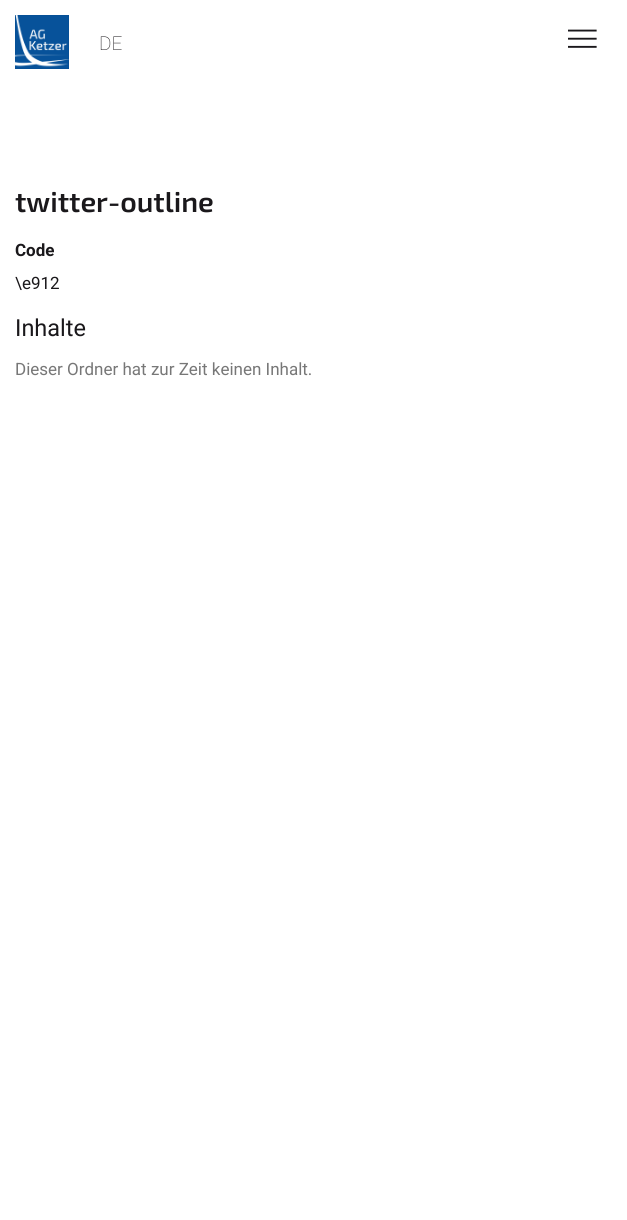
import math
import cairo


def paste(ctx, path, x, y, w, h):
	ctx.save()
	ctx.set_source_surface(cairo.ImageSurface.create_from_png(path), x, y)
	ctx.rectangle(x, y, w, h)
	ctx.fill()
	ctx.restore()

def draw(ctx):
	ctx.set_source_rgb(1, 1, 1)
	ctx.paint()
	paste(ctx, 'media/1.png', 15, 15, 54, 54)
	ctx.select_font_face('Roboto Thin')
	ctx.set_font_size(19)
	ctx.set_source_rgb(0.102, 0.094, 0.106)
	ctx.move_to(99, 50)
	ctx.show_text('DE')
	paste(ctx, 'media/2.png', 568, 29, 29, 19)
	ctx.select_font_face('Exo 2 SemiBold')
	ctx.set_font_size(28.5)
	ctx.move_to(15, 212)
	ctx.show_text('twitter-outline')
	ctx.select_font_face('Roboto', cairo.FONT_SLANT_NORMAL, cairo.FONT_WEIGHT_BOLD)
	ctx.set_font_size(17)
	ctx.move_to(15, 256)
	ctx.show_text('Code')
	ctx.select_font_face('Roboto')
	ctx.move_to(15, 289)
	ctx.show_text('\\e912')
	ctx.set_font_size(23.5)
	ctx.move_to(15, 336)
	ctx.show_text('Inhalte')
	ctx.set_font_size(17)
	ctx.set_source_rgb(0.467, 0.467, 0.467)
	ctx.move_to(15, 375)
	ctx.show_text('Dieser Ordner hat zur Zeit keinen Inhalt.')


surface = cairo.ImageSurface(cairo.FORMAT_RGB24, 627, 1220)
ctx = cairo.Context(surface)
options = cairo.FontOptions()
options.set_hint_metrics(cairo.HINT_METRICS_OFF)
options.set_hint_style(cairo.HINT_STYLE_NONE)
ctx.set_font_options(options)
ctx.set_miter_limit(4)
draw(ctx)
surface.write_to_png('image.png')
